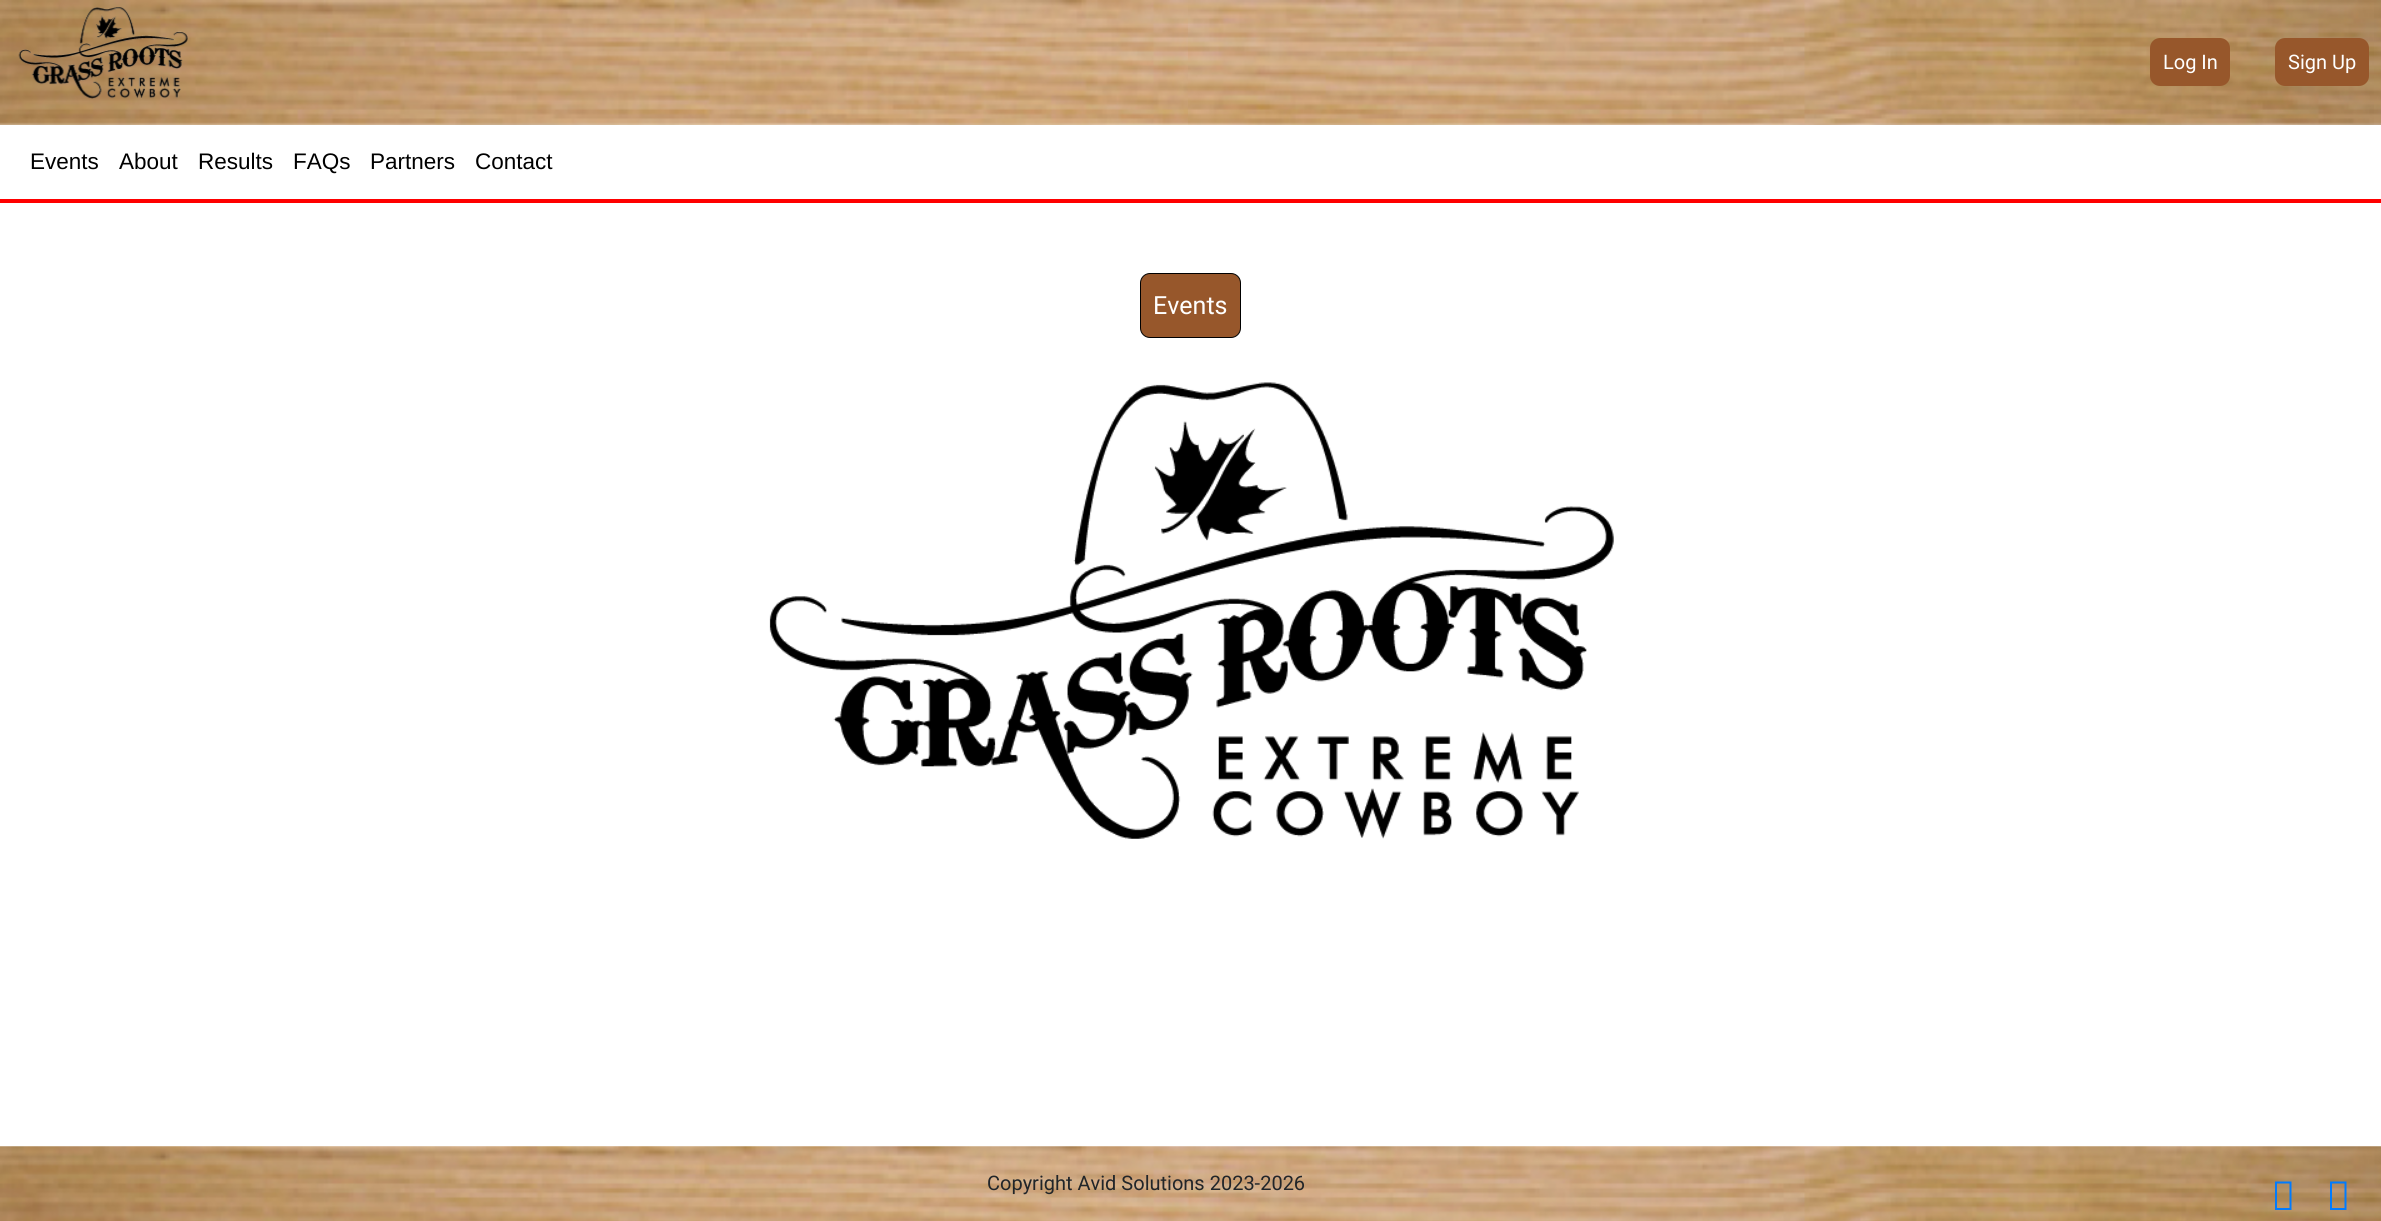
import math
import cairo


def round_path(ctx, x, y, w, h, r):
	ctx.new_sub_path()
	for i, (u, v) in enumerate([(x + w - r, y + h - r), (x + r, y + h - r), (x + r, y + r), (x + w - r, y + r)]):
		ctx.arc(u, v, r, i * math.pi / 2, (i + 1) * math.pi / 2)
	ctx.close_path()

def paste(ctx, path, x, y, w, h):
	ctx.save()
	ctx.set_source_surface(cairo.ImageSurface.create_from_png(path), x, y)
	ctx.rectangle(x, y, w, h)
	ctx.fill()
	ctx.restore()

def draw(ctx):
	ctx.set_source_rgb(1, 1, 1)
	ctx.paint()
	paste(ctx, 'media/1.png', 0, 0, 2381, 125)
	paste(ctx, 'media/2.png', 18, 7, 170, 92)
	ctx.set_source_rgb(0.592, 0.341, 0.169)
	round_path(ctx, 2150, 38, 80, 48, 10)
	ctx.fill()
	ctx.select_font_face('Roboto')
	ctx.set_font_size(20)
	ctx.set_source_rgb(1, 1, 1)
	ctx.move_to(2163, 69)
	ctx.show_text('Log In')
	ctx.set_source_rgb(0.592, 0.341, 0.169)
	round_path(ctx, 2275, 38, 94, 48, 10)
	ctx.fill()
	ctx.set_source_rgb(1, 1, 1)
	ctx.move_to(2288, 69)
	ctx.show_text('Sign Up')
	ctx.set_source_rgb(1, 0, 0)
	ctx.rectangle(0, 199, 2381, 4)
	ctx.fill()
	ctx.select_font_face('Liberation Sans')
	ctx.set_font_size(22.5)
	ctx.set_source_rgb(0, 0, 0)
	for x, y, s in [
		(30, 169, 'Events'),
		(119, 169, 'About'),
		(198, 169, 'Results'),
		(293, 169, 'FAQs'),
		(370, 169, 'Partners'),
		(475, 169, 'Contact'),
	]:
		ctx.move_to(x, y)
		ctx.show_text(s)
	ctx.set_source_rgb(0.592, 0.341, 0.169)
	round_path(ctx, 1140.5, 273.5, 100, 64, 9.5)
	ctx.fill_preserve()
	ctx.set_source_rgb(0, 0, 0)
	ctx.set_line_width(1)
	ctx.stroke()
	ctx.select_font_face('Roboto')
	ctx.set_font_size(25)
	ctx.set_source_rgb(1, 1, 1)
	ctx.move_to(1153, 314)
	ctx.show_text('Events')
	paste(ctx, 'media/3.png', 769, 382, 845, 457)
	paste(ctx, 'media/4.png', 0, 1146, 2381, 75)
	ctx.set_font_size(20)
	ctx.set_source_rgb(0.129, 0.145, 0.161)
	ctx.move_to(987, 1190)
	ctx.show_text('Copyright Avid Solutions 2023-2026')
	ctx.set_source_rgb(0, 0.482, 1)
	ctx.new_path()
	ctx.move_to(2275, 1210)
	ctx.line_to(2275, 1181.5)
	ctx.line_to(2291.5, 1181.5)
	ctx.line_to(2291.5, 1210)
	ctx.close_path()
	ctx.move_to(2277, 1208)
	ctx.line_to(2289.5, 1208)
	ctx.line_to(2289.5, 1183.5)
	ctx.line_to(2277, 1183.5)
	ctx.close_path()
	ctx.fill()
	ctx.new_path()
	ctx.move_to(2330, 1210)
	ctx.line_to(2330, 1181.5)
	ctx.line_to(2346.5, 1181.5)
	ctx.line_to(2346.5, 1210)
	ctx.close_path()
	ctx.move_to(2332, 1208)
	ctx.line_to(2344.5, 1208)
	ctx.line_to(2344.5, 1183.5)
	ctx.line_to(2332, 1183.5)
	ctx.close_path()
	ctx.fill()


surface = cairo.ImageSurface(cairo.FORMAT_RGB24, 2381, 1221)
ctx = cairo.Context(surface)
options = cairo.FontOptions()
options.set_hint_metrics(cairo.HINT_METRICS_OFF)
options.set_hint_style(cairo.HINT_STYLE_NONE)
ctx.set_font_options(options)
ctx.set_miter_limit(4)
draw(ctx)
surface.write_to_png('image.png')
